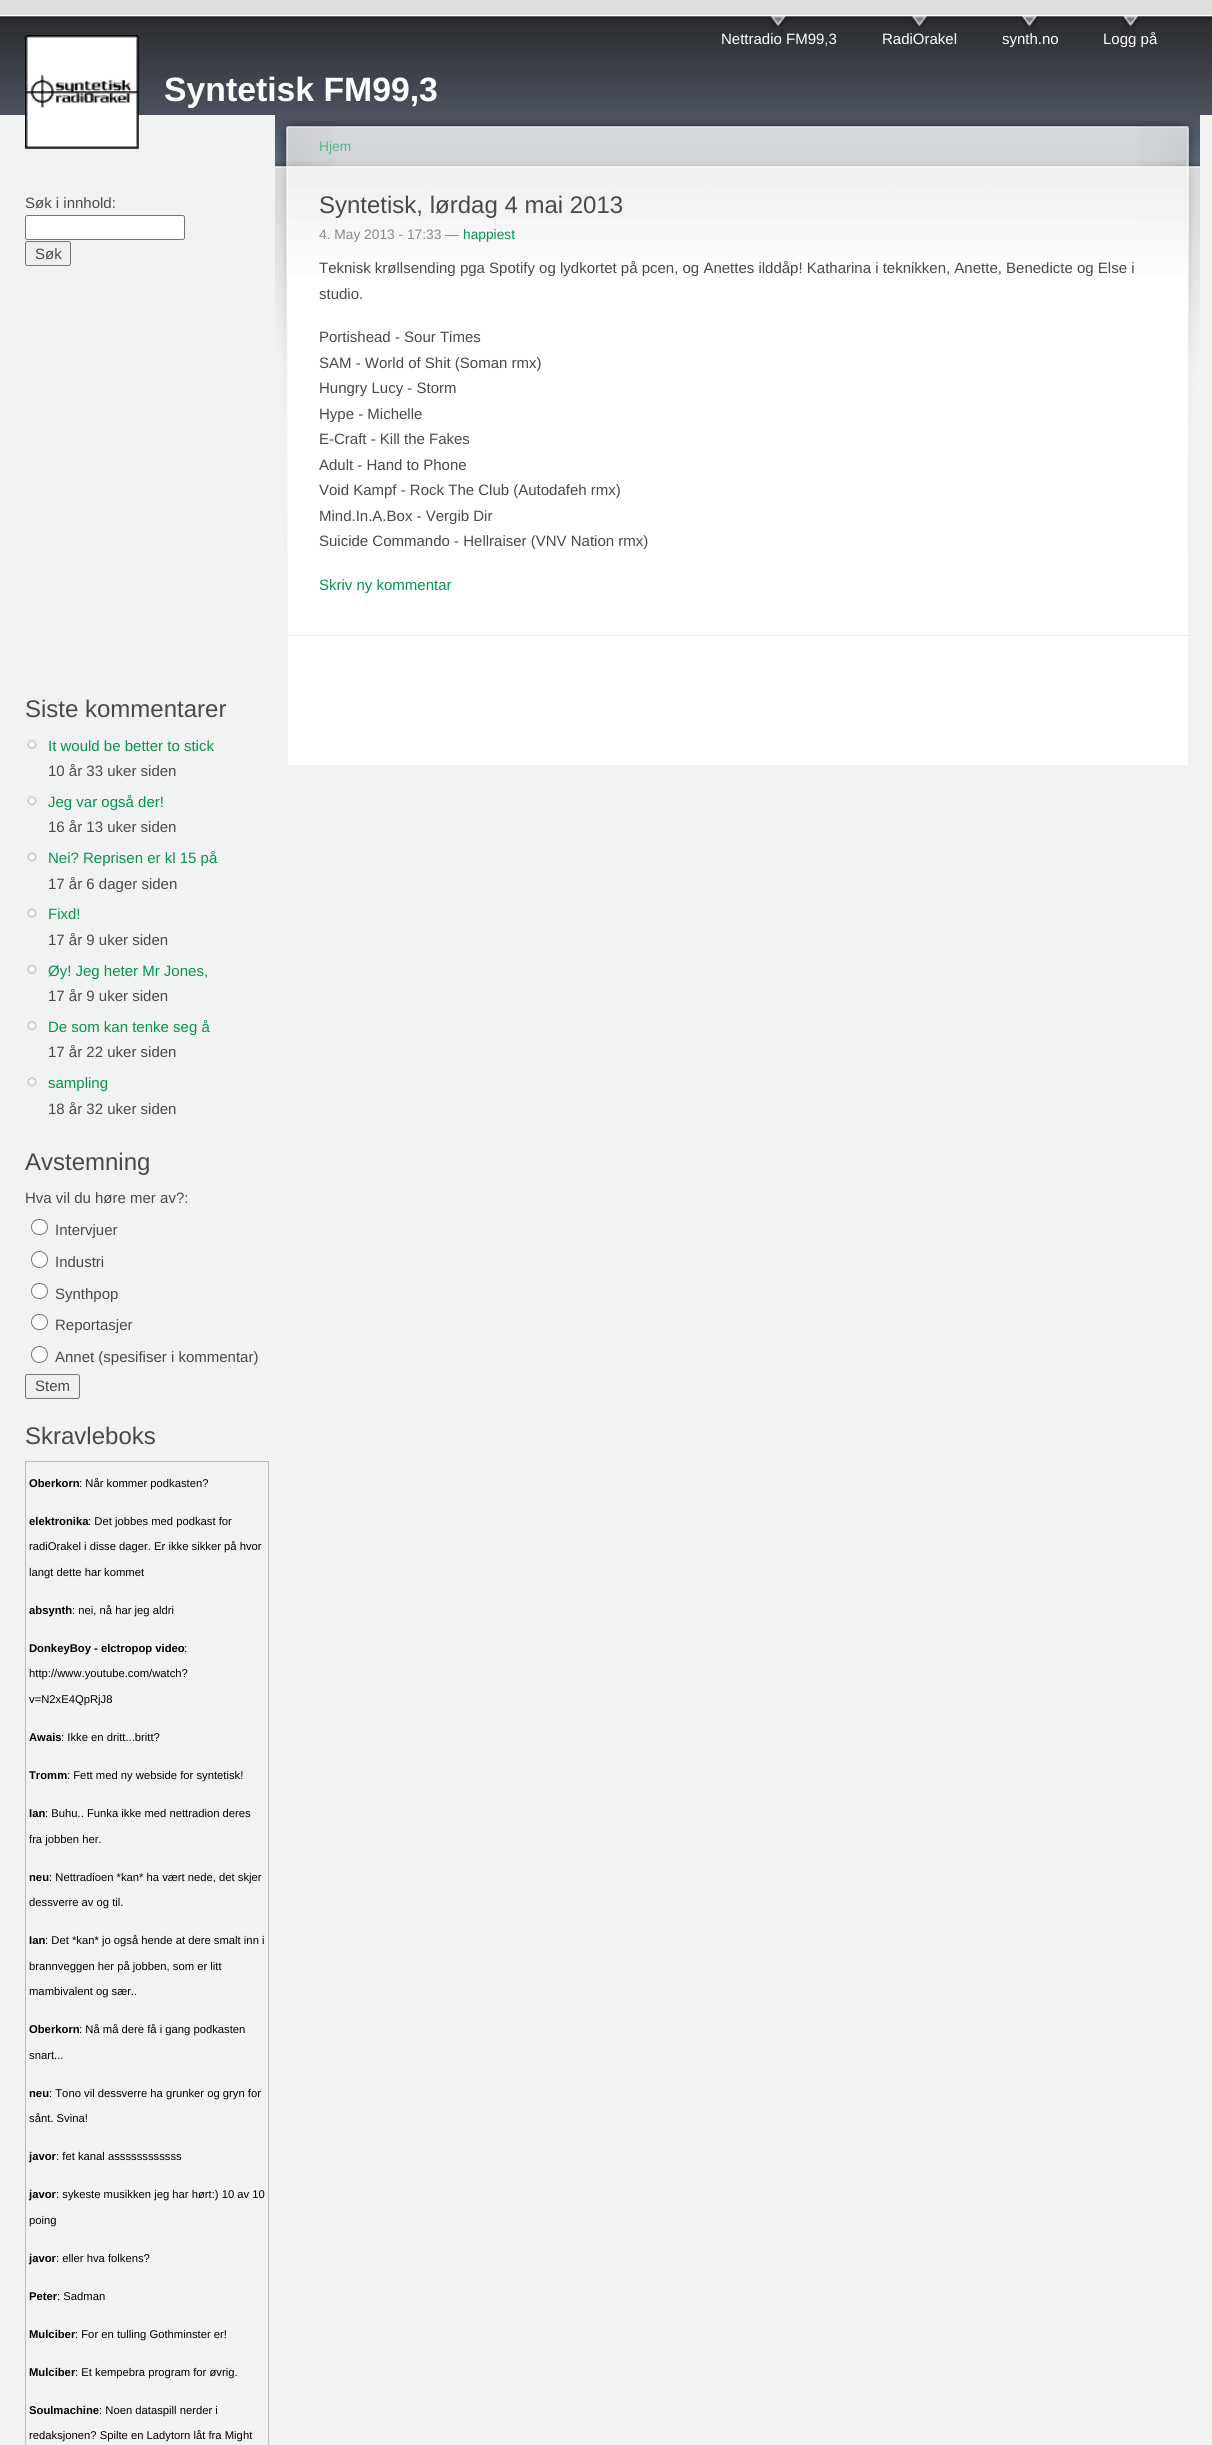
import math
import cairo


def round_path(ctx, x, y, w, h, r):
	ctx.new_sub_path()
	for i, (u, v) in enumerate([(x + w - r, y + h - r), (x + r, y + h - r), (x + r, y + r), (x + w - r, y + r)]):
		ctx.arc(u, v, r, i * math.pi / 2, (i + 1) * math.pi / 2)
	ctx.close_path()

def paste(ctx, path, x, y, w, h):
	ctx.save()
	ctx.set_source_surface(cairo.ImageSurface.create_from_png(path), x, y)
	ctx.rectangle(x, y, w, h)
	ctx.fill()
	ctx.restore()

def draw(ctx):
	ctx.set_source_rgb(0.945, 0.949, 0.949)
	ctx.paint()
	ctx.set_source_rgb(0.871, 0.871, 0.875)
	ctx.rectangle(0, 0, 1212, 15)
	ctx.fill()
	paste(ctx, 'media/1.png', 0, 15, 1212, 100)
	paste(ctx, 'media/2.png', 770, 16, 17, 12)
	ctx.select_font_face('Liberation Sans')
	ctx.set_font_size(15)
	ctx.set_source_rgb(1, 1, 1)
	ctx.move_to(721, 44)
	ctx.show_text('Nettradio FM99,3')
	paste(ctx, 'media/3.png', 911, 16, 17, 12)
	ctx.move_to(882, 44)
	ctx.show_text('RadiOrakel')
	paste(ctx, 'media/4.png', 1021, 16, 17, 12)
	ctx.move_to(1002, 44)
	ctx.show_text('synth.no')
	paste(ctx, 'media/5.png', 1122, 16, 17, 12)
	ctx.move_to(1103, 44)
	ctx.show_text('Logg på')
	paste(ctx, 'media/6.png', 25, 35, 114, 114)
	ctx.select_font_face('Liberation Sans', cairo.FONT_SLANT_NORMAL, cairo.FONT_WEIGHT_BOLD)
	ctx.set_font_size(33.75)
	ctx.move_to(164, 101)
	ctx.show_text('Syntetisk FM99,3')
	ctx.select_font_face('Liberation Sans')
	ctx.set_font_size(15)
	ctx.set_source_rgb(0.286, 0.286, 0.286)
	ctx.move_to(25, 208)
	ctx.show_text('Søk i innhold:')
	ctx.set_source_rgb(1, 1, 1)
	round_path(ctx, 25.5, 215.5, 159, 24, 2)
	ctx.fill_preserve()
	ctx.set_source_rgb(0.463, 0.463, 0.463)
	ctx.set_line_width(1)
	ctx.stroke()
	ctx.set_source_rgb(0.937, 0.937, 0.937)
	round_path(ctx, 25.5, 241.5, 45, 24, 2)
	ctx.fill_preserve()
	ctx.set_source_rgb(0.463, 0.463, 0.463)
	ctx.stroke()
	ctx.set_source_rgb(0.286, 0.286, 0.286)
	ctx.move_to(35, 259)
	ctx.show_text('Søk')
	ctx.set_font_size(24)
	ctx.move_to(25, 717)
	ctx.show_text('Siste kommentarer')
	paste(ctx, 'media/7.png', 27, 740, 10, 9)
	ctx.set_font_size(15)
	ctx.set_source_rgb(0.02, 0.58, 0.302)
	ctx.move_to(48, 751)
	ctx.show_text('It would be better to stick')
	ctx.set_source_rgb(0.286, 0.286, 0.286)
	ctx.move_to(48, 776)
	ctx.show_text('10 år 33 uker siden')
	paste(ctx, 'media/8.png', 27, 796, 10, 10)
	ctx.set_source_rgb(0.02, 0.58, 0.302)
	ctx.move_to(48, 807)
	ctx.show_text('Jeg var også der!')
	ctx.set_source_rgb(0.286, 0.286, 0.286)
	ctx.move_to(48, 832)
	ctx.show_text('16 år 13 uker siden')
	paste(ctx, 'media/9.png', 27, 852, 10, 10)
	ctx.set_source_rgb(0.02, 0.58, 0.302)
	ctx.move_to(48, 863)
	ctx.show_text('Nei? Reprisen er kl 15 på')
	ctx.set_source_rgb(0.286, 0.286, 0.286)
	ctx.move_to(48, 889)
	ctx.show_text('17 år 6 dager siden')
	paste(ctx, 'media/10.png', 27, 908, 10, 10)
	ctx.set_source_rgb(0.02, 0.58, 0.302)
	ctx.move_to(48, 919)
	ctx.show_text('Fixd!')
	ctx.set_source_rgb(0.286, 0.286, 0.286)
	ctx.move_to(48, 945)
	ctx.show_text('17 år 9 uker siden')
	paste(ctx, 'media/7.png', 27, 965, 10, 9)
	ctx.set_source_rgb(0.02, 0.58, 0.302)
	ctx.move_to(48, 976)
	ctx.show_text('Øy! Jeg heter Mr Jones,')
	ctx.set_source_rgb(0.286, 0.286, 0.286)
	ctx.move_to(48, 1001)
	ctx.show_text('17 år 9 uker siden')
	paste(ctx, 'media/8.png', 27, 1021, 10, 10)
	ctx.set_source_rgb(0.02, 0.58, 0.302)
	ctx.move_to(48, 1032)
	ctx.show_text('De som kan tenke seg å')
	ctx.set_source_rgb(0.286, 0.286, 0.286)
	ctx.move_to(48, 1057)
	ctx.show_text('17 år 22 uker siden')
	paste(ctx, 'media/9.png', 27, 1077, 10, 10)
	ctx.set_source_rgb(0.02, 0.58, 0.302)
	ctx.move_to(48, 1088)
	ctx.show_text('sampling')
	ctx.set_source_rgb(0.286, 0.286, 0.286)
	ctx.move_to(48, 1114)
	ctx.show_text('18 år 32 uker siden')
	ctx.set_font_size(24)
	ctx.move_to(25, 1170)
	ctx.show_text('Avstemning')
	ctx.set_font_size(15)
	ctx.move_to(25, 1203)
	ctx.show_text('Hva vil du høre mer av?:')
	ctx.set_source_rgb(1, 1, 1)
	round_path(ctx, 31.5, 1219.5, 16, 15, 7.5)
	ctx.fill_preserve()
	ctx.set_source_rgb(0.463, 0.463, 0.463)
	ctx.stroke()
	ctx.set_source_rgb(0.286, 0.286, 0.286)
	ctx.move_to(55, 1235)
	ctx.show_text('Intervjuer')
	ctx.set_source_rgb(1, 1, 1)
	ctx.new_path()
	ctx.arc(39.5, 1259.5, 8, 0, 2 * math.pi)
	ctx.fill_preserve()
	ctx.set_source_rgb(0.463, 0.463, 0.463)
	ctx.stroke()
	ctx.set_source_rgb(0.286, 0.286, 0.286)
	ctx.move_to(55, 1267)
	ctx.show_text('Industri')
	ctx.set_source_rgb(1, 1, 1)
	round_path(ctx, 31.5, 1283.5, 16, 15, 7.5)
	ctx.fill_preserve()
	ctx.set_source_rgb(0.463, 0.463, 0.463)
	ctx.stroke()
	ctx.set_source_rgb(0.286, 0.286, 0.286)
	ctx.move_to(55, 1299)
	ctx.show_text('Synthpop')
	ctx.set_source_rgb(1, 1, 1)
	round_path(ctx, 31.5, 1314.5, 16, 15, 7.5)
	ctx.fill_preserve()
	ctx.set_source_rgb(0.463, 0.463, 0.463)
	ctx.stroke()
	ctx.set_source_rgb(0.286, 0.286, 0.286)
	ctx.move_to(55, 1330)
	ctx.show_text('Reportasjer')
	ctx.set_source_rgb(1, 1, 1)
	ctx.new_path()
	ctx.arc(39.5, 1354.5, 8, 0, 2 * math.pi)
	ctx.fill_preserve()
	ctx.set_source_rgb(0.463, 0.463, 0.463)
	ctx.stroke()
	ctx.set_source_rgb(0.286, 0.286, 0.286)
	ctx.move_to(55, 1362)
	ctx.show_text('Annet (spesifiser i kommentar)')
	ctx.set_source_rgb(0.937, 0.937, 0.937)
	round_path(ctx, 25.5, 1374.5, 54, 24, 2)
	ctx.fill_preserve()
	ctx.set_source_rgb(0.463, 0.463, 0.463)
	ctx.stroke()
	ctx.set_source_rgb(0.286, 0.286, 0.286)
	ctx.move_to(35, 1391)
	ctx.show_text('Stem')
	ctx.set_font_size(24)
	ctx.move_to(25, 1444)
	ctx.show_text('Skravleboks')
	ctx.rectangle(25.5, 1461.5, 243, 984)
	ctx.set_source_rgb(0.733, 0.733, 0.733)
	ctx.stroke()
	ctx.select_font_face('Liberation Sans', cairo.FONT_SLANT_NORMAL, cairo.FONT_WEIGHT_BOLD)
	ctx.set_font_size(11.25)
	ctx.set_source_rgb(0, 0, 0)
	ctx.move_to(29, 1487)
	ctx.show_text('Oberkorn')
	ctx.select_font_face('Liberation Sans')
	ctx.move_to(79, 1487)
	ctx.show_text(': Når kommer podkasten?')
	ctx.select_font_face('Liberation Sans', cairo.FONT_SLANT_NORMAL, cairo.FONT_WEIGHT_BOLD)
	ctx.move_to(29, 1525)
	ctx.show_text('elektronika')
	ctx.select_font_face('Liberation Sans')
	for x, y, s in [
		(88, 1525, ': Det jobbes med podkast for'),
		(29, 1550, 'radiOrakel i disse dager. Er ikke sikker på hvor'),
		(29, 1576, 'langt dette har kommet'),
	]:
		ctx.move_to(x, y)
		ctx.show_text(s)
	ctx.select_font_face('Liberation Sans', cairo.FONT_SLANT_NORMAL, cairo.FONT_WEIGHT_BOLD)
	ctx.move_to(29, 1614)
	ctx.show_text('absynth')
	ctx.select_font_face('Liberation Sans')
	ctx.move_to(72, 1614)
	ctx.show_text(': nei, nå har jeg aldri')
	ctx.select_font_face('Liberation Sans', cairo.FONT_SLANT_NORMAL, cairo.FONT_WEIGHT_BOLD)
	ctx.move_to(29, 1652)
	ctx.show_text('DonkeyBoy - elctropop video')
	ctx.select_font_face('Liberation Sans')
	for x, y, s in [
		(184, 1652, ':'),
		(29, 1677, 'http://www.youtube.com/watch?'),
		(29, 1703, 'v=N2xE4QpRjJ8'),
	]:
		ctx.move_to(x, y)
		ctx.show_text(s)
	ctx.select_font_face('Liberation Sans', cairo.FONT_SLANT_NORMAL, cairo.FONT_WEIGHT_BOLD)
	ctx.move_to(29, 1741)
	ctx.show_text('Awais')
	ctx.select_font_face('Liberation Sans')
	ctx.move_to(61, 1741)
	ctx.show_text(': Ikke en dritt...britt?')
	ctx.select_font_face('Liberation Sans', cairo.FONT_SLANT_NORMAL, cairo.FONT_WEIGHT_BOLD)
	ctx.move_to(29, 1779)
	ctx.show_text('Tromm')
	ctx.select_font_face('Liberation Sans')
	ctx.move_to(67, 1779)
	ctx.show_text(': Fett med ny webside for syntetisk!')
	ctx.select_font_face('Liberation Sans', cairo.FONT_SLANT_NORMAL, cairo.FONT_WEIGHT_BOLD)
	ctx.move_to(29, 1817)
	ctx.show_text('Ian')
	ctx.select_font_face('Liberation Sans')
	ctx.move_to(45, 1817)
	ctx.show_text(': Buhu.. Funka ikke med nettradion deres')
	ctx.move_to(29, 1843)
	ctx.show_text('fra jobben her.')
	ctx.select_font_face('Liberation Sans', cairo.FONT_SLANT_NORMAL, cairo.FONT_WEIGHT_BOLD)
	ctx.move_to(29, 1881)
	ctx.show_text('neu')
	ctx.select_font_face('Liberation Sans')
	ctx.move_to(49, 1881)
	ctx.show_text(': Nettradioen *kan* ha vært nede, det skjer')
	ctx.move_to(29, 1906)
	ctx.show_text('dessverre av og til.')
	ctx.select_font_face('Liberation Sans', cairo.FONT_SLANT_NORMAL, cairo.FONT_WEIGHT_BOLD)
	ctx.move_to(29, 1944)
	ctx.show_text('Ian')
	ctx.select_font_face('Liberation Sans')
	for x, y, s in [
		(45, 1944, ': Det *kan* jo også hende at dere smalt inn i'),
		(29, 1970, 'brannveggen her på jobben, som er litt'),
		(29, 1995, 'mambivalent og sær..'),
	]:
		ctx.move_to(x, y)
		ctx.show_text(s)
	ctx.select_font_face('Liberation Sans', cairo.FONT_SLANT_NORMAL, cairo.FONT_WEIGHT_BOLD)
	ctx.move_to(29, 2033)
	ctx.show_text('Oberkorn')
	ctx.select_font_face('Liberation Sans')
	ctx.move_to(79, 2033)
	ctx.show_text(': Nå må dere få i gang podkasten')
	ctx.move_to(29, 2059)
	ctx.show_text('snart...')
	ctx.select_font_face('Liberation Sans', cairo.FONT_SLANT_NORMAL, cairo.FONT_WEIGHT_BOLD)
	ctx.move_to(29, 2097)
	ctx.show_text('neu')
	ctx.select_font_face('Liberation Sans')
	ctx.move_to(49, 2097)
	ctx.show_text(': Tono vil dessverre ha grunker og gryn for')
	ctx.move_to(29, 2122)
	ctx.show_text('sånt. Svina!')
	ctx.select_font_face('Liberation Sans', cairo.FONT_SLANT_NORMAL, cairo.FONT_WEIGHT_BOLD)
	ctx.move_to(29, 2160)
	ctx.show_text('javor')
	ctx.select_font_face('Liberation Sans')
	ctx.move_to(56, 2160)
	ctx.show_text(': fet kanal assssssssssss')
	ctx.select_font_face('Liberation Sans', cairo.FONT_SLANT_NORMAL, cairo.FONT_WEIGHT_BOLD)
	ctx.move_to(29, 2198)
	ctx.show_text('javor')
	ctx.select_font_face('Liberation Sans')
	ctx.move_to(56, 2198)
	ctx.show_text(': sykeste musikken jeg har hørt:) 10 av 10')
	ctx.move_to(29, 2224)
	ctx.show_text('poing')
	ctx.select_font_face('Liberation Sans', cairo.FONT_SLANT_NORMAL, cairo.FONT_WEIGHT_BOLD)
	ctx.move_to(29, 2262)
	ctx.show_text('javor')
	ctx.select_font_face('Liberation Sans')
	ctx.move_to(56, 2262)
	ctx.show_text(': eller hva folkens?')
	ctx.select_font_face('Liberation Sans', cairo.FONT_SLANT_NORMAL, cairo.FONT_WEIGHT_BOLD)
	ctx.move_to(29, 2300)
	ctx.show_text('Peter')
	ctx.select_font_face('Liberation Sans')
	ctx.move_to(57, 2300)
	ctx.show_text(': Sadman')
	ctx.select_font_face('Liberation Sans', cairo.FONT_SLANT_NORMAL, cairo.FONT_WEIGHT_BOLD)
	ctx.move_to(29, 2338)
	ctx.show_text('Mulciber')
	ctx.select_font_face('Liberation Sans')
	ctx.move_to(75, 2338)
	ctx.show_text(': For en tulling Gothminster er!')
	ctx.select_font_face('Liberation Sans', cairo.FONT_SLANT_NORMAL, cairo.FONT_WEIGHT_BOLD)
	ctx.move_to(29, 2376)
	ctx.show_text('Mulciber')
	ctx.select_font_face('Liberation Sans')
	ctx.move_to(75, 2376)
	ctx.show_text(': Et kempebra program for øvrig.')
	ctx.select_font_face('Liberation Sans', cairo.FONT_SLANT_NORMAL, cairo.FONT_WEIGHT_BOLD)
	ctx.move_to(29, 2414)
	ctx.show_text('Soulmachine')
	ctx.select_font_face('Liberation Sans')
	ctx.move_to(99, 2414)
	ctx.show_text(': Noen dataspill nerder i')
	ctx.move_to(29, 2439)
	ctx.show_text('redaksjonen? Spilte en Ladytorn låt fra Might')
	ctx.set_source_rgb(1, 1, 1)
	ctx.rectangle(288, 365, 900, 400)
	ctx.fill()
	paste(ctx, 'media/11.png', 335, 115, 803, 250)
	paste(ctx, 'media/12.png', 1138, 115, 62, 440)
	paste(ctx, 'media/13.png', 275, 115, 60, 440)
	ctx.set_font_size(13.75)
	ctx.set_source_rgb(0.329, 0.702, 0.541)
	ctx.move_to(319, 151)
	ctx.show_text('Hjem')
	ctx.set_font_size(24)
	ctx.set_source_rgb(0.286, 0.286, 0.286)
	ctx.move_to(319, 213)
	ctx.show_text('Syntetisk, lørdag 4 mai 2013')
	ctx.set_source_rgb(0.922, 0.922, 0.922)
	ctx.rectangle(286, 635, 903, 1)
	ctx.fill()
	ctx.set_font_size(13.75)
	ctx.set_source_rgb(0.537, 0.537, 0.537)
	ctx.move_to(319, 239)
	ctx.show_text('4. May 2013 - 17:33 —')
	ctx.set_source_rgb(0.02, 0.58, 0.302)
	ctx.move_to(463, 239)
	ctx.show_text('happiest')
	ctx.set_font_size(15)
	ctx.set_source_rgb(0.286, 0.286, 0.286)
	for x, y, s in [
		(319, 273, 'Teknisk krøllsending pga Spotify og lydkortet på pcen, og Anettes ilddåp! Katharina i teknikken, Anette, Benedicte og Else i'),
		(319, 299, 'studio.'),
		(319, 342, 'Portishead - Sour Times'),
		(319, 368, 'SAM - World of Shit (Soman rmx)'),
		(319, 393, 'Hungry Lucy - Storm'),
		(319, 419, 'Hype - Michelle'),
		(319, 444, 'E-Craft - Kill the Fakes'),
		(319, 470, 'Adult - Hand to Phone'),
		(319, 495, 'Void Kampf - Rock The Club (Autodafeh rmx)'),
		(319, 521, 'Mind.In.A.Box - Vergib Dir'),
		(319, 546, 'Suicide Commando - Hellraiser (VNV Nation rmx)'),
	]:
		ctx.move_to(x, y)
		ctx.show_text(s)
	ctx.set_source_rgb(0.02, 0.58, 0.302)
	ctx.move_to(319, 590)
	ctx.show_text('Skriv ny kommentar')


surface = cairo.ImageSurface(cairo.FORMAT_RGB24, 1212, 2445)
ctx = cairo.Context(surface)
options = cairo.FontOptions()
options.set_hint_metrics(cairo.HINT_METRICS_OFF)
options.set_hint_style(cairo.HINT_STYLE_NONE)
ctx.set_font_options(options)
ctx.set_miter_limit(4)
draw(ctx)
surface.write_to_png('image.png')
